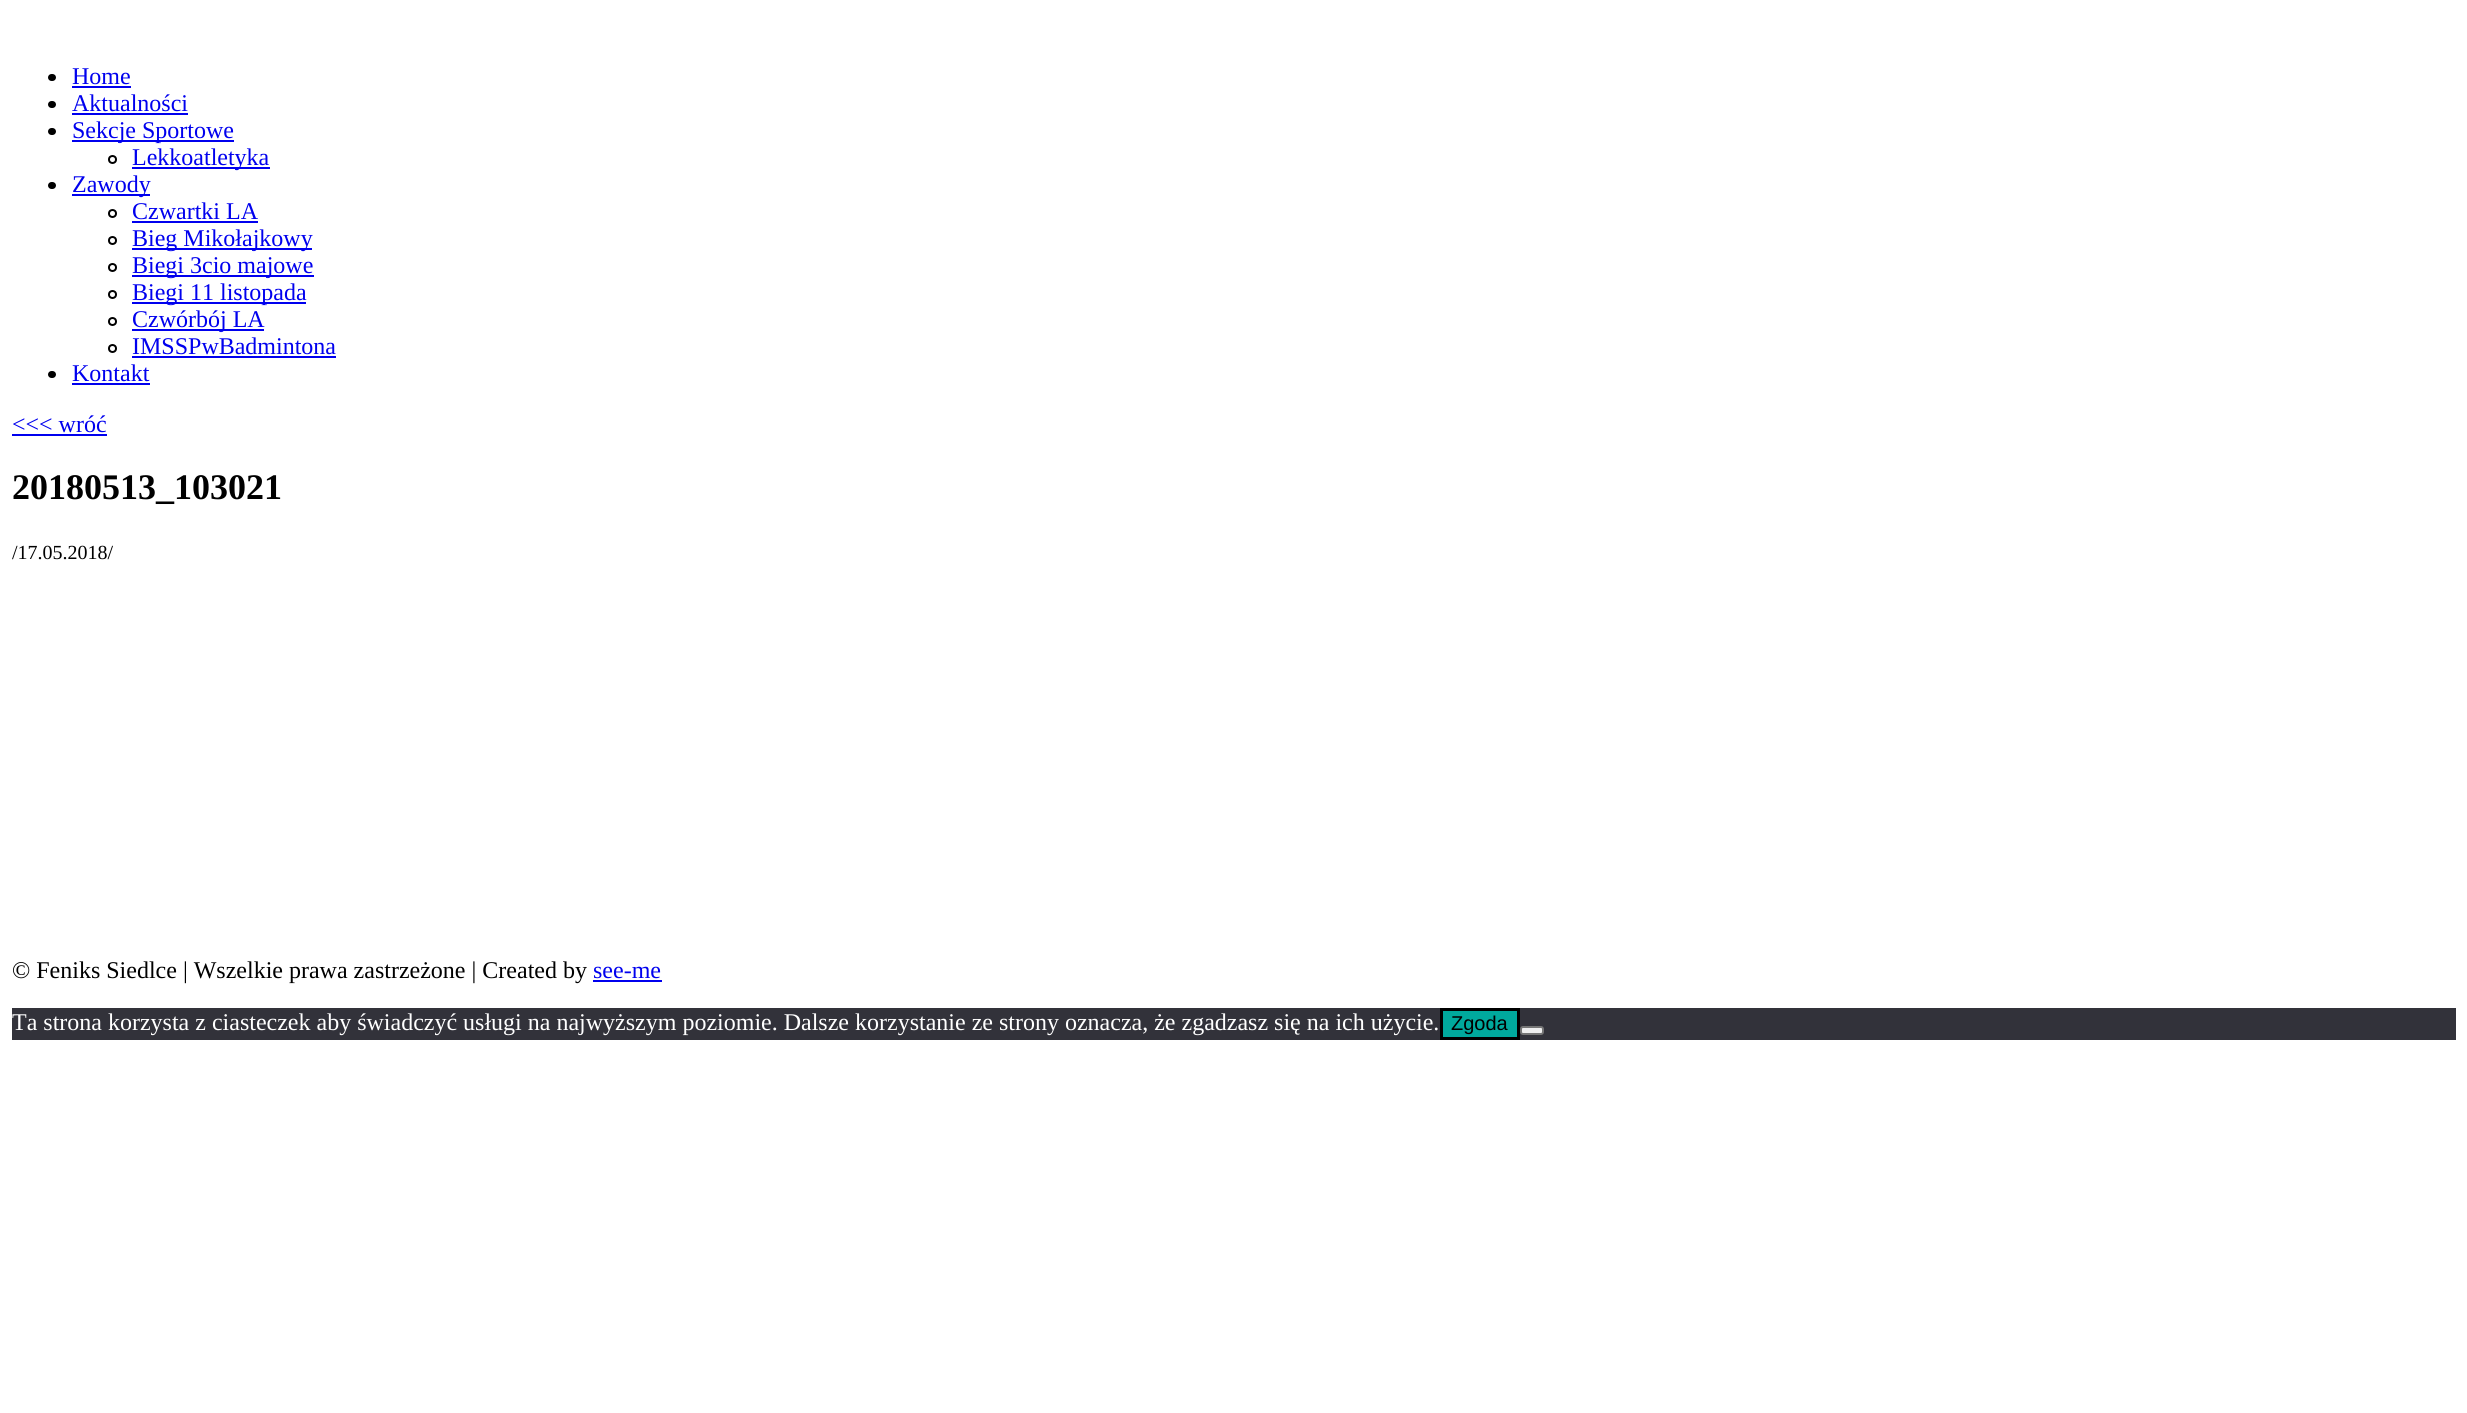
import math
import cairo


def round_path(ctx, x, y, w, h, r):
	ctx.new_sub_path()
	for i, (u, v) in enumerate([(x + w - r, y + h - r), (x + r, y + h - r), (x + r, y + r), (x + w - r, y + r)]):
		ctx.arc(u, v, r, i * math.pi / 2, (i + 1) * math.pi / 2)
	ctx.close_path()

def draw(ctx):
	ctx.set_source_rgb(1, 1, 1)
	ctx.paint()
	ctx.set_source_rgb(0, 0, 0)
	round_path(ctx, 48, 74, 8, 7, 3.5)
	ctx.fill()
	ctx.select_font_face('Liberation Serif')
	ctx.set_font_size(24)
	ctx.set_source_rgb(0, 0, 0.933)
	ctx.move_to(72, 84)
	ctx.show_text('Home')
	ctx.rectangle(72, 86, 59, 2)
	ctx.fill()
	ctx.set_source_rgb(0, 0, 0)
	round_path(ctx, 48, 101, 8, 7, 3.5)
	ctx.fill()
	ctx.set_source_rgb(0, 0, 0.933)
	ctx.move_to(72, 111)
	ctx.show_text('Aktualności')
	ctx.rectangle(72, 113, 116, 2)
	ctx.fill()
	ctx.set_source_rgb(0, 0, 0)
	round_path(ctx, 48, 128, 8, 7, 3.5)
	ctx.fill()
	ctx.set_source_rgb(0, 0, 0.933)
	ctx.rectangle(72, 140, 162, 2)
	ctx.fill()
	ctx.move_to(72, 138)
	ctx.show_text('Sekcje Sportowe')
	ctx.new_path()
	ctx.arc(112.5, 159.5, 3.5, 0, 2 * math.pi)
	ctx.set_source_rgb(0, 0, 0)
	ctx.stroke()
	ctx.set_source_rgb(0, 0, 0.933)
	ctx.rectangle(132, 167, 138, 2)
	ctx.fill()
	ctx.move_to(132, 165)
	ctx.show_text('Lekkoatletyka')
	ctx.set_source_rgb(0, 0, 0)
	round_path(ctx, 48, 182, 8, 7, 3.5)
	ctx.fill()
	ctx.set_source_rgb(0, 0, 0.933)
	ctx.rectangle(72, 194, 78, 2)
	ctx.fill()
	ctx.move_to(72, 192)
	ctx.show_text('Zawody')
	ctx.new_path()
	ctx.arc(112.5, 213.5, 3.5, 0, 2 * math.pi)
	ctx.set_source_rgb(0, 0, 0)
	ctx.stroke()
	ctx.set_source_rgb(0, 0, 0.933)
	ctx.move_to(132, 219)
	ctx.show_text('Czwartki LA')
	ctx.rectangle(132, 221, 126, 2)
	ctx.fill()
	ctx.arc(112.5, 240.5, 3.5, 0, 2 * math.pi)
	ctx.set_source_rgb(0, 0, 0)
	ctx.stroke()
	ctx.set_source_rgb(0, 0, 0.933)
	ctx.rectangle(132, 248, 180, 2)
	ctx.fill()
	ctx.move_to(132, 246)
	ctx.show_text('Bieg Mikołajkowy')
	ctx.new_path()
	ctx.arc(112.5, 267.5, 3.5, 0, 2 * math.pi)
	ctx.set_source_rgb(0, 0, 0)
	ctx.stroke()
	ctx.set_source_rgb(0, 0, 0.933)
	ctx.rectangle(132, 275, 182, 2)
	ctx.fill()
	ctx.move_to(132, 273)
	ctx.show_text('Biegi 3cio majowe')
	ctx.new_path()
	ctx.arc(112.5, 294.5, 3.5, 0, 2 * math.pi)
	ctx.set_source_rgb(0, 0, 0)
	ctx.stroke()
	ctx.set_source_rgb(0, 0, 0.933)
	ctx.rectangle(132, 302, 174, 2)
	ctx.fill()
	ctx.move_to(132, 300)
	ctx.show_text('Biegi 11 listopada')
	ctx.new_path()
	ctx.arc(112.5, 321.5, 3.5, 0, 2 * math.pi)
	ctx.set_source_rgb(0, 0, 0)
	ctx.stroke()
	ctx.set_source_rgb(0, 0, 0.933)
	ctx.rectangle(132, 329, 132, 2)
	ctx.fill()
	ctx.move_to(132, 327)
	ctx.show_text('Czwórbój LA')
	ctx.new_path()
	ctx.arc(112.5, 348.5, 3.5, 0, 2 * math.pi)
	ctx.set_source_rgb(0, 0, 0)
	ctx.stroke()
	ctx.set_source_rgb(0, 0, 0.933)
	ctx.move_to(132, 354)
	ctx.show_text('IMSSPwBadmintona')
	ctx.rectangle(132, 356, 204, 2)
	ctx.fill()
	ctx.set_source_rgb(0, 0, 0)
	round_path(ctx, 48, 371, 8, 7, 3.5)
	ctx.fill()
	ctx.set_source_rgb(0, 0, 0.933)
	ctx.move_to(72, 381)
	ctx.show_text('Kontakt')
	ctx.rectangle(72, 383, 78, 2)
	ctx.fill()
	ctx.move_to(12, 432)
	ctx.show_text('<<< wróć')
	ctx.rectangle(12, 434, 95, 2)
	ctx.fill()
	ctx.select_font_face('Liberation Serif', cairo.FONT_SLANT_NORMAL, cairo.FONT_WEIGHT_BOLD)
	ctx.set_font_size(36)
	ctx.set_source_rgb(0, 0, 0)
	ctx.move_to(12, 499)
	ctx.show_text('20180513_103021')
	ctx.select_font_face('Liberation Serif')
	ctx.set_font_size(20)
	ctx.move_to(12, 559)
	ctx.show_text('/17.05.2018/')
	ctx.set_font_size(24)
	ctx.move_to(12, 978)
	ctx.show_text('© Feniks Siedlce | Wszelkie prawa zastrzeżone | Created by')
	ctx.set_source_rgb(0, 0, 0.933)
	ctx.move_to(593, 978)
	ctx.show_text('see-me')
	ctx.rectangle(593, 980, 69, 2)
	ctx.fill()
	ctx.set_source_rgb(0.196, 0.196, 0.227)
	ctx.rectangle(12, 1008, 2444, 32)
	ctx.fill()
	ctx.set_source_rgb(1, 1, 1)
	ctx.move_to(12, 1030)
	ctx.show_text('Ta strona korzysta z ciasteczek aby świadczyć usługi na najwyższym poziomie. Dalsze korzystanie ze strony oznacza, że zgadzasz się na ich użycie.')
	ctx.set_source_rgb(0, 0.663, 0.616)
	ctx.rectangle(1441.5, 1009.5, 77, 29)
	ctx.fill_preserve()
	ctx.set_source_rgb(0, 0, 0)
	ctx.set_line_width(3)
	ctx.stroke()
	ctx.select_font_face('Liberation Sans')
	ctx.set_font_size(20)
	ctx.move_to(1451, 1030)
	ctx.show_text('Zgoda')
	ctx.set_source_rgb(0.937, 0.937, 0.937)
	round_path(ctx, 1521, 1027, 22, 7, 2)
	ctx.fill_preserve()
	ctx.set_source_rgb(0.463, 0.463, 0.463)
	ctx.set_line_width(2)
	ctx.stroke()


surface = cairo.ImageSurface(cairo.FORMAT_RGB24, 2467, 1413)
ctx = cairo.Context(surface)
options = cairo.FontOptions()
options.set_hint_metrics(cairo.HINT_METRICS_OFF)
options.set_hint_style(cairo.HINT_STYLE_NONE)
ctx.set_font_options(options)
ctx.set_miter_limit(4)
draw(ctx)
surface.write_to_png('image.png')
